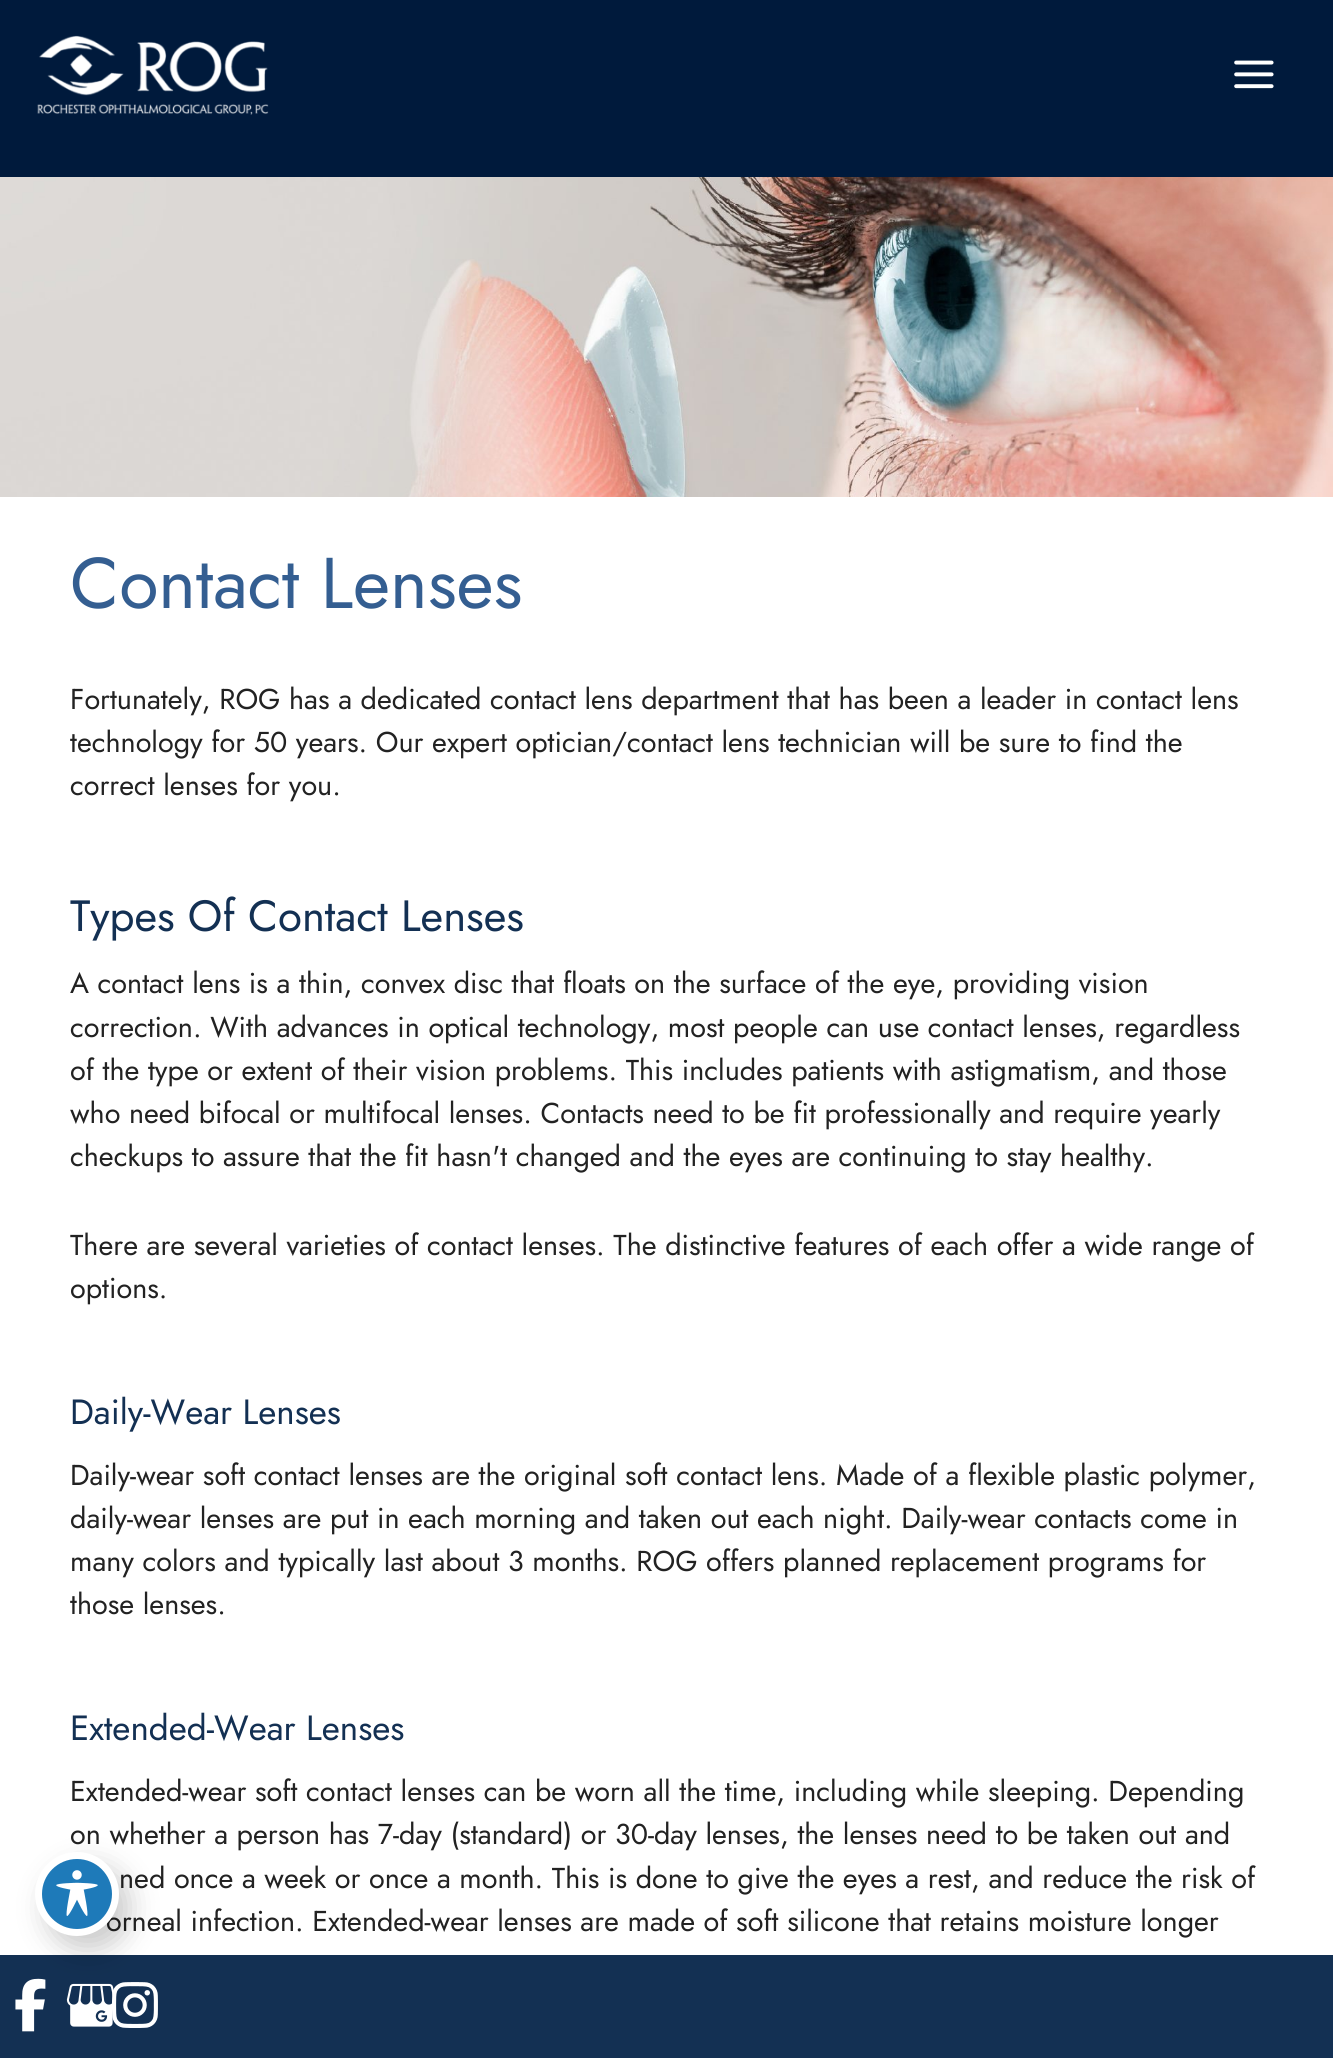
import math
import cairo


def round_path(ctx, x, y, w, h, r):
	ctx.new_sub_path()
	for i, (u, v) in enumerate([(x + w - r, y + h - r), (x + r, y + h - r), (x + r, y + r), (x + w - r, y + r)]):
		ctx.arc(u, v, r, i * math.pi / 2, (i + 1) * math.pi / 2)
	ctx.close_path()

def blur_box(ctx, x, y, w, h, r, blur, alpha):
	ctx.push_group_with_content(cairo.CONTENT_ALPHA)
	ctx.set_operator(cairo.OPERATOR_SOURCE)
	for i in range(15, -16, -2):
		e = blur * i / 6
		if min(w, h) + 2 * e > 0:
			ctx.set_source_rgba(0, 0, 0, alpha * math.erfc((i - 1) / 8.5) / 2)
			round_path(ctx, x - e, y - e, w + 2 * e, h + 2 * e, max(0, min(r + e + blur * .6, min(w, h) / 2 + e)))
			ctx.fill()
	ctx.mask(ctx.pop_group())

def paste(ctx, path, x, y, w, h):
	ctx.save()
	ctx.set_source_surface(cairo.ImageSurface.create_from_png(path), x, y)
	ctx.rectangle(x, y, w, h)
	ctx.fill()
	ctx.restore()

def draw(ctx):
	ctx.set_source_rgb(1, 1, 1)
	ctx.paint()
	ctx.set_source_rgb(0, 0.102, 0.235)
	ctx.rectangle(0, 0, 1333, 177)
	ctx.fill()
	paste(ctx, 'media/1.png', 37, 35, 232, 80)
	paste(ctx, 'media/2.png', 1234, 60, 40, 29)
	paste(ctx, 'media/3.png', 0, 177, 1333, 320)
	ctx.select_font_face('Jost')
	ctx.set_font_size(71.75)
	ctx.set_source_rgb(0.204, 0.369, 0.569)
	ctx.move_to(70, 608)
	ctx.show_text('Contact Lenses')
	ctx.set_font_size(28.75)
	ctx.set_source_rgb(0.133, 0.133, 0.133)
	for x, y, s in [
		(70, 709, 'Fortunately, ROG has a dedicated contact lens department that has been a leader in contact lens'),
		(70, 752, 'technology for 50 years. Our expert optician/contact lens technician will be sure to find the'),
		(70, 795, 'correct lenses for you.'),
	]:
		ctx.move_to(x, y)
		ctx.show_text(s)
	ctx.set_font_size(43.75)
	ctx.set_source_rgb(0.075, 0.188, 0.325)
	ctx.move_to(70, 931)
	ctx.show_text('Types Of Contact Lenses')
	ctx.set_font_size(28.75)
	ctx.set_source_rgb(0.133, 0.133, 0.133)
	for x, y, s in [
		(70, 993, 'A contact lens is a thin, convex disc that floats on the surface of the eye, providing vision'),
		(70, 1037, 'correction. With advances in optical technology, most people can use contact lenses, regardless'),
		(70, 1080, 'of the type or extent of their vision problems. This includes patients with astigmatism, and those'),
		(70, 1123, 'who need bifocal or multifocal lenses. Contacts need to be fit professionally and require yearly'),
		(70, 1166, 'checkups to assure that the fit hasn\'t changed and the eyes are continuing to stay healthy.'),
		(70, 1255, 'There are several varieties of contact lenses. The distinctive features of each offer a wide range of'),
		(70, 1298, 'options.'),
	]:
		ctx.move_to(x, y)
		ctx.show_text(s)
	ctx.set_font_size(35)
	ctx.set_source_rgb(0.075, 0.188, 0.325)
	ctx.move_to(70, 1424)
	ctx.show_text('Daily-Wear Lenses')
	ctx.set_font_size(28.75)
	ctx.set_source_rgb(0.133, 0.133, 0.133)
	for x, y, s in [
		(70, 1485, 'Daily-wear soft contact lenses are the original soft contact lens. Made of a flexible plastic polymer,'),
		(70, 1528, 'daily-wear lenses are put in each morning and taken out each night. Daily-wear contacts come in'),
		(70, 1571, 'many colors and typically last about 3 months. ROG offers planned replacement programs for'),
		(70, 1614, 'those lenses.'),
	]:
		ctx.move_to(x, y)
		ctx.show_text(s)
	ctx.set_font_size(35)
	ctx.set_source_rgb(0.075, 0.188, 0.325)
	ctx.move_to(70, 1740)
	ctx.show_text('Extended-Wear Lenses')
	ctx.set_font_size(28.75)
	ctx.set_source_rgb(0.133, 0.133, 0.133)
	for x, y, s in [
		(70, 1801, 'Extended-wear soft contact lenses can be worn all the time, including while sleeping. Depending'),
		(70, 1844, 'on whether a person has 7-day (standard) or 30-day lenses, the lenses need to be taken out and'),
		(119, 1888, 'ned once a week or once a month. This is done to give the eyes a rest, and reduce the risk of'),
		(106, 1931, 'orneal infection. Extended-wear lenses are made of soft silicone that retains moisture longer'),
	]:
		ctx.move_to(x, y)
		ctx.show_text(s)
	ctx.set_source_rgb(0.075, 0.188, 0.325)
	ctx.rectangle(0, 1955, 1333, 103)
	ctx.fill()
	paste(ctx, 'media/5.png', 15, 1978, 31, 54)
	paste(ctx, 'media/6.png', 66, 1983, 48, 44)
	paste(ctx, 'media/7.png', 112, 1982, 46, 46)
	ctx.set_source_rgb(0, 0, 0)
	blur_box(ctx, 46, 1866, 84, 84, 42, 14, 0.2)
	ctx.set_source_rgb(0.118, 0.478, 0.725)
	ctx.arc(77, 1894, 38.5, 0, 2 * math.pi)
	ctx.fill_preserve()
	ctx.set_source_rgb(1, 1, 1)
	ctx.set_line_width(7)
	ctx.stroke()
	paste(ctx, 'media/4.png', 56, 1870, 42, 46)


surface = cairo.ImageSurface(cairo.FORMAT_RGB24, 1333, 2058)
ctx = cairo.Context(surface)
options = cairo.FontOptions()
options.set_hint_metrics(cairo.HINT_METRICS_OFF)
options.set_hint_style(cairo.HINT_STYLE_NONE)
ctx.set_font_options(options)
ctx.set_miter_limit(4)
draw(ctx)
surface.write_to_png('image.png')
